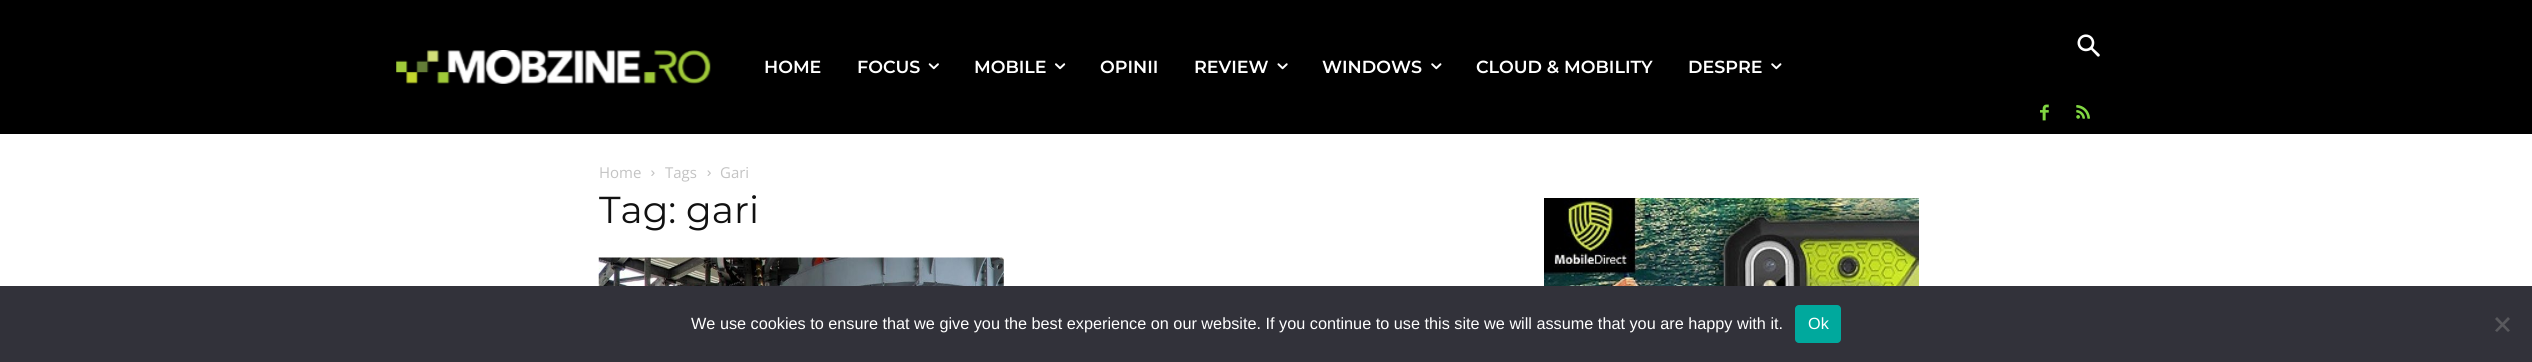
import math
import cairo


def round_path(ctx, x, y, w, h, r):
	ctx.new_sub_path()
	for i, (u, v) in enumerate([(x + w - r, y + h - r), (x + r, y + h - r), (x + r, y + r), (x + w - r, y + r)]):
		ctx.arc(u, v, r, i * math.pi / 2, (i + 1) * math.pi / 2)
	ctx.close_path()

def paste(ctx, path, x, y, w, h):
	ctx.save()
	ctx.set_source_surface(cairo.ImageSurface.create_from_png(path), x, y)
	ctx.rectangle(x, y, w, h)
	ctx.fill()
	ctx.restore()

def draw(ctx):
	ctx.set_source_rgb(1, 1, 1)
	ctx.paint()
	ctx.set_source_rgb(0, 0, 0)
	ctx.rectangle(0, 0, 2532, 134)
	ctx.fill()
	paste(ctx, 'media/1.png', 396, 50, 315, 34)
	ctx.select_font_face('Montserrat SemiBold')
	ctx.set_font_size(17.5)
	ctx.set_source_rgb(1, 1, 1)
	ctx.move_to(764, 73)
	ctx.show_text('HOME')
	ctx.move_to(857, 73)
	ctx.show_text('FOCUS')
	paste(ctx, 'media/2.png', 928, 63, 11, 7)
	ctx.move_to(974, 73)
	ctx.show_text('MOBILE')
	paste(ctx, 'media/3.png', 1055, 63, 11, 7)
	ctx.move_to(1100, 73)
	ctx.show_text('OPINII')
	ctx.move_to(1194, 73)
	ctx.show_text('REVIEW')
	paste(ctx, 'media/4.png', 1277, 63, 11, 7)
	ctx.move_to(1322, 73)
	ctx.show_text('WINDOWS')
	paste(ctx, 'media/5.png', 1431, 63, 11, 7)
	ctx.move_to(1476, 73)
	ctx.show_text('CLOUD & MOBILITY')
	ctx.move_to(1688, 73)
	ctx.show_text('DESPRE')
	paste(ctx, 'media/5.png', 1771, 63, 11, 7)
	paste(ctx, 'media/6.png', 2077, 34, 23, 23)
	paste(ctx, 'media/7.png', 2040, 104, 9, 17)
	paste(ctx, 'media/8.png', 2076, 105, 14, 14)
	ctx.select_font_face('Open Sans')
	ctx.set_font_size(15)
	ctx.set_source_rgb(0.765, 0.765, 0.765)
	ctx.move_to(599, 178)
	ctx.show_text('Home')
	paste(ctx, 'media/9.png', 651, 170, 4, 6)
	ctx.move_to(665, 178)
	ctx.show_text('Tags')
	paste(ctx, 'media/10.png', 707, 170, 4, 6)
	ctx.move_to(720, 178)
	ctx.show_text('Gari')
	ctx.select_font_face('Montserrat')
	ctx.set_font_size(37.5)
	ctx.set_source_rgb(0.067, 0.067, 0.067)
	ctx.move_to(599, 223)
	ctx.show_text('Tag: gari')
	paste(ctx, 'media/11.png', 598, 257, 406, 29)
	paste(ctx, 'media/12.png', 1544, 198, 375, 88)
	ctx.set_source_rgb(0.196, 0.196, 0.227)
	ctx.rectangle(0, 286, 2532, 76)
	ctx.fill()
	ctx.select_font_face('Liberation Sans')
	ctx.set_font_size(16.25)
	ctx.set_source_rgb(1, 1, 1)
	ctx.move_to(691, 329)
	ctx.show_text('We use cookies to ensure that we give you the best experience on our website. If you continue to use this site we will assume that you are happy with it.')
	ctx.set_source_rgb(0, 0.663, 0.616)
	round_path(ctx, 1795, 305, 46, 38, 4)
	ctx.fill()
	ctx.set_source_rgb(1, 1, 1)
	ctx.move_to(1808, 329)
	ctx.show_text('Ok')
	ctx.set_source_rgb(0.349, 0.349, 0.365)
	ctx.new_path()
	ctx.move_to(2508, 317)
	ctx.line_to(2510, 319)
	ctx.line_to(2497, 332)
	ctx.line_to(2495, 330.5)
	ctx.close_path()
	ctx.fill()
	ctx.new_path()
	ctx.move_to(2495, 319)
	ctx.line_to(2497, 317)
	ctx.line_to(2510, 330.5)
	ctx.line_to(2508, 332)
	ctx.close_path()
	ctx.fill()


surface = cairo.ImageSurface(cairo.FORMAT_RGB24, 2532, 362)
ctx = cairo.Context(surface)
options = cairo.FontOptions()
options.set_hint_metrics(cairo.HINT_METRICS_OFF)
options.set_hint_style(cairo.HINT_STYLE_NONE)
ctx.set_font_options(options)
ctx.set_miter_limit(4)
draw(ctx)
surface.write_to_png('image.png')
